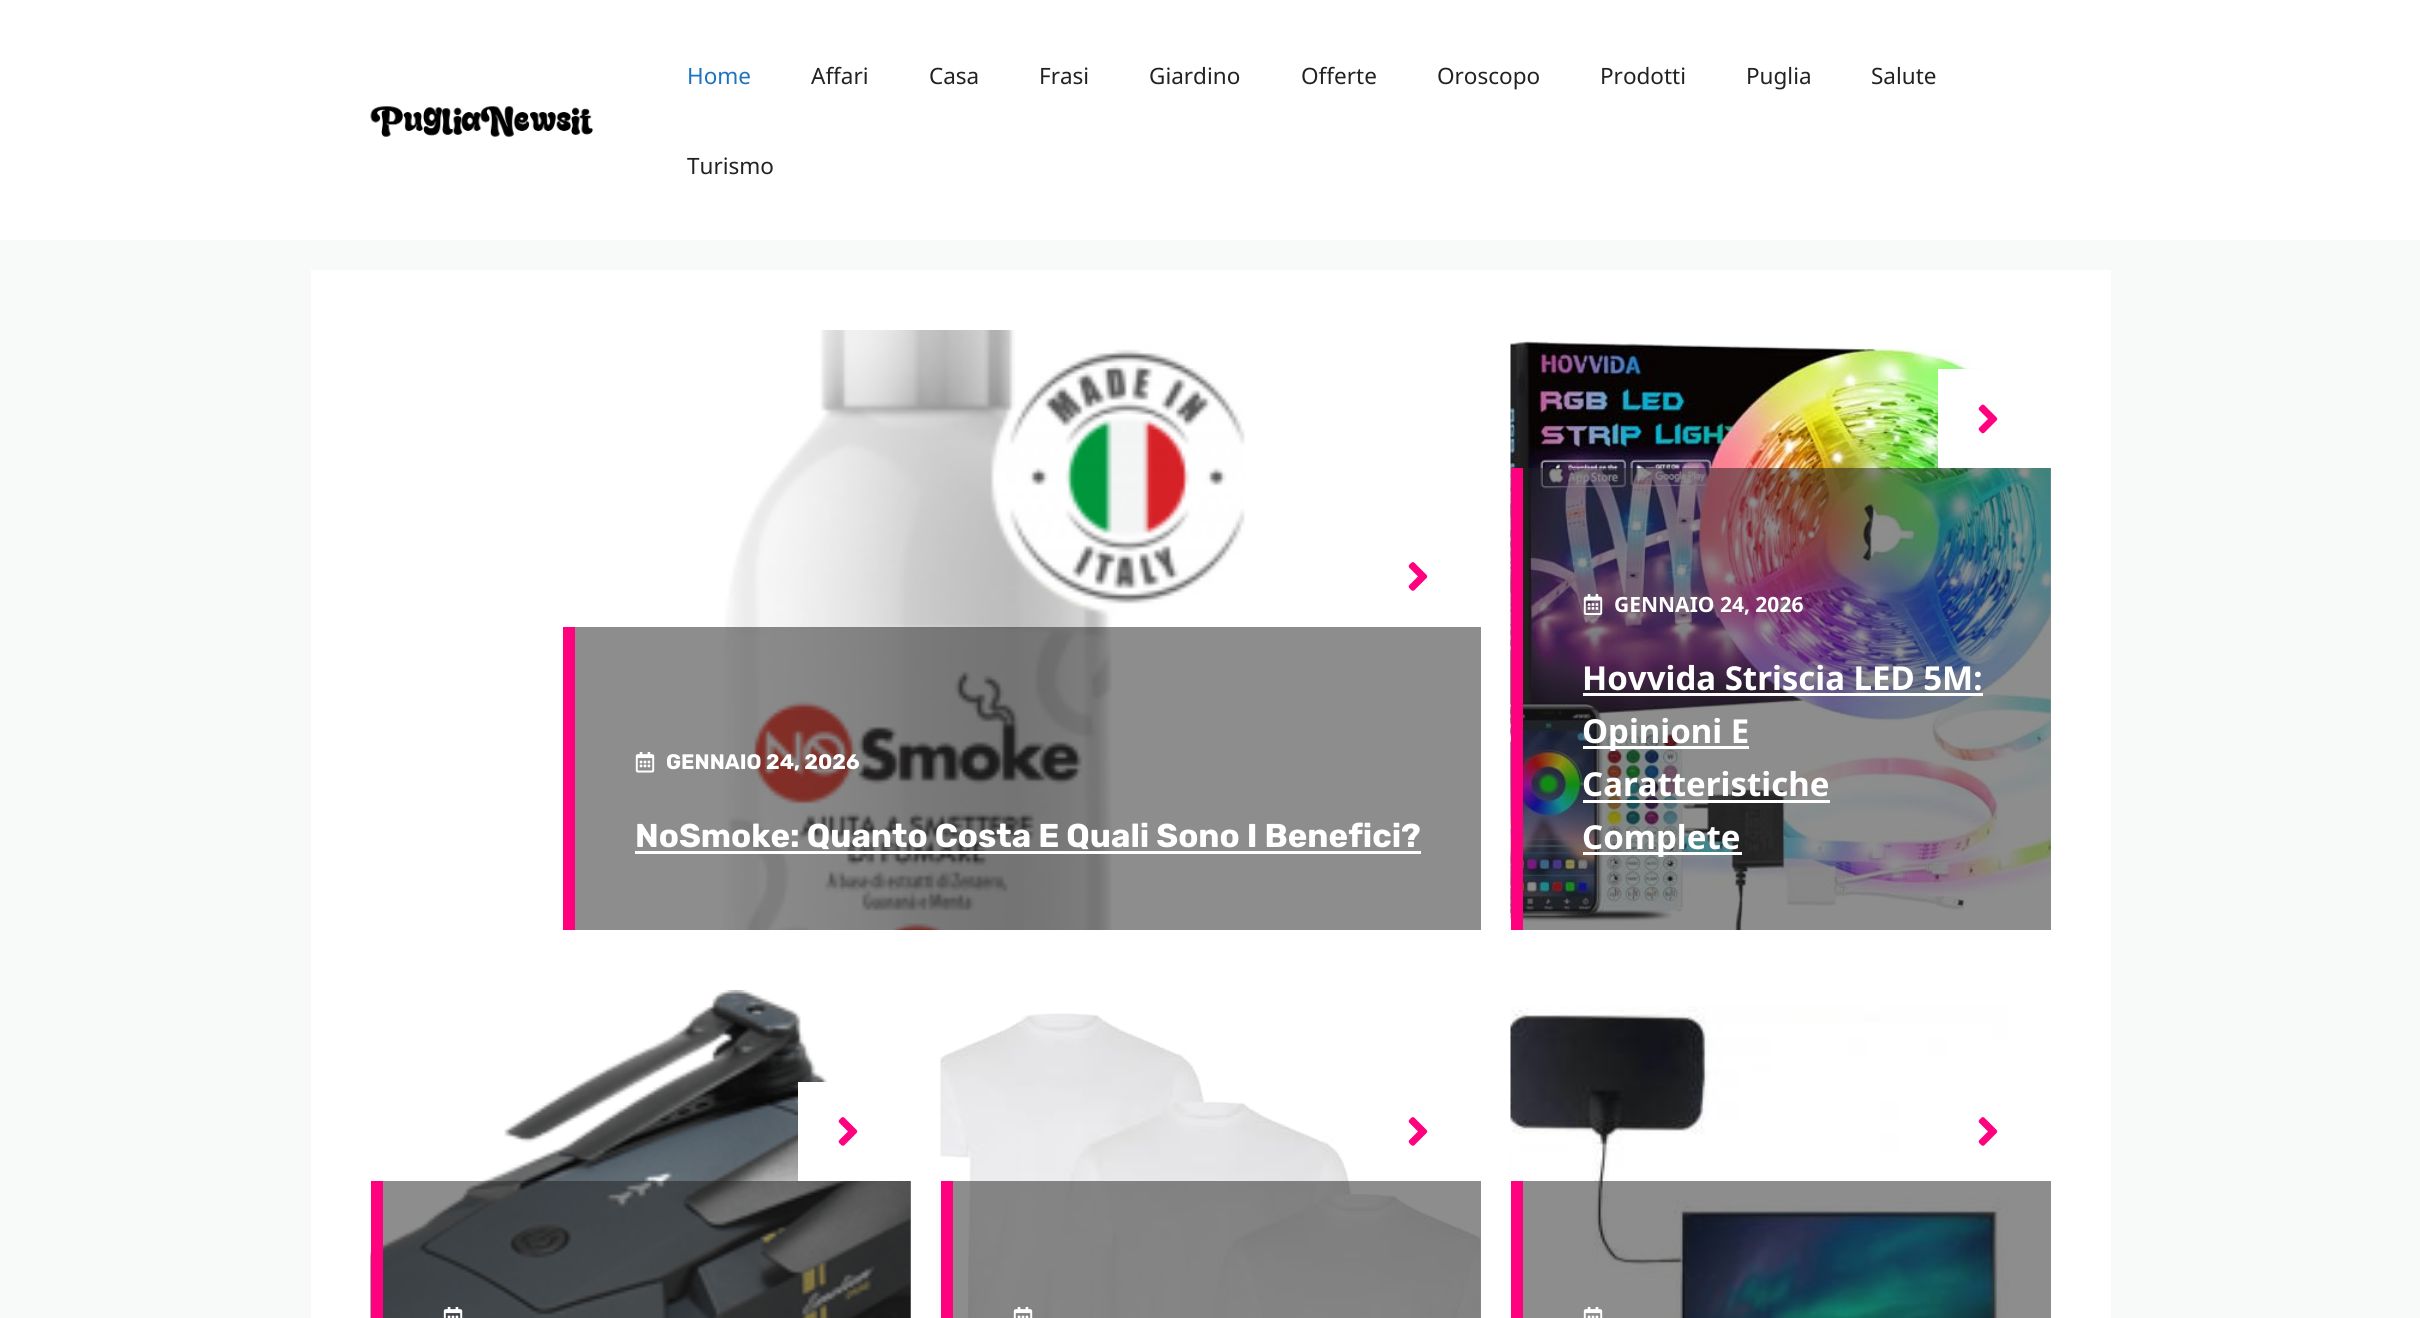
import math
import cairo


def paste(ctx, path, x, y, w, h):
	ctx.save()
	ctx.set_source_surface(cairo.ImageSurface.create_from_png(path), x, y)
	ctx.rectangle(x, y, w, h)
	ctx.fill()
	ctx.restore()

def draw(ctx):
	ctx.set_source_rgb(0.969, 0.973, 0.976)
	ctx.paint()
	ctx.set_source_rgb(1, 1, 1)
	ctx.rectangle(0, 0, 2420, 240)
	ctx.fill()
	paste(ctx, 'media/1.png', 370, 106, 223, 31)
	ctx.select_font_face('Noto Sans')
	ctx.set_font_size(22.5)
	ctx.set_source_rgb(0.118, 0.451, 0.745)
	ctx.move_to(687, 84)
	ctx.show_text('Home')
	ctx.set_source_rgb(0.133, 0.133, 0.133)
	for x, y, s in [
		(811, 84, 'Affari'),
		(929, 84, 'Casa'),
		(1039, 84, 'Frasi'),
		(1149, 84, 'Giardino'),
		(1301, 84, 'Offerte'),
		(1437, 84, 'Oroscopo'),
		(1600, 84, 'Prodotti'),
		(1746, 84, 'Puglia'),
		(1871, 84, 'Salute'),
		(687, 174, 'Turismo'),
	]:
		ctx.move_to(x, y)
		ctx.show_text(s)
	ctx.set_source_rgb(1, 1, 1)
	ctx.rectangle(311, 270, 1800, 1048)
	ctx.fill()
	paste(ctx, 'media/2.png', 723, 330, 522, 600)
	paste(ctx, 'media/3.png', 1408, 562, 20, 29)
	ctx.set_source_rgba(0.129, 0.129, 0.129, 0.51)
	ctx.rectangle(575, 627, 906, 303)
	ctx.fill()
	ctx.set_source_rgb(1, 0, 0.494)
	ctx.rectangle(563, 627, 12, 303)
	ctx.fill()
	paste(ctx, 'media/4.png', 635, 752, 20, 21)
	ctx.select_font_face('Rubik', cairo.FONT_SLANT_NORMAL, cairo.FONT_WEIGHT_BOLD)
	ctx.set_font_size(21)
	ctx.set_source_rgb(1, 1, 1)
	ctx.move_to(666, 769)
	ctx.show_text('GENNAIO 24, 2026')
	ctx.set_font_size(33)
	ctx.move_to(635, 847)
	ctx.show_text('NoSmoke: Quanto Costa E Quali Sono I Benefici?')
	ctx.rectangle(635, 851, 786, 3)
	ctx.fill()
	paste(ctx, 'media/5.png', 1510, 341, 541, 589)
	ctx.rectangle(1938, 369, 113, 99)
	ctx.fill()
	paste(ctx, 'media/6.png', 1978, 404, 20, 30)
	ctx.set_source_rgba(0.129, 0.129, 0.129, 0.51)
	ctx.rectangle(1523, 468, 528, 462)
	ctx.fill()
	ctx.set_source_rgb(1, 0, 0.494)
	ctx.rectangle(1511, 468, 12, 462)
	ctx.fill()
	paste(ctx, 'media/7.png', 1583, 594, 20, 21)
	ctx.select_font_face('Noto Sans', cairo.FONT_SLANT_NORMAL, cairo.FONT_WEIGHT_BOLD)
	ctx.set_font_size(21)
	ctx.set_source_rgb(1, 1, 1)
	ctx.move_to(1614, 612)
	ctx.show_text('GENNAIO 24, 2026')
	ctx.set_font_size(33)
	ctx.move_to(1582, 690)
	ctx.show_text('Hovvida Striscia LED 5M:')
	ctx.rectangle(1583, 693, 400, 3)
	ctx.fill()
	ctx.rectangle(1583, 746, 166, 3)
	ctx.fill()
	ctx.move_to(1582, 743)
	ctx.show_text('Opinioni E')
	ctx.move_to(1582, 796)
	ctx.show_text('Caratteristiche')
	ctx.rectangle(1583, 800, 247, 3)
	ctx.fill()
	ctx.rectangle(1583, 852, 159, 3)
	ctx.fill()
	ctx.move_to(1582, 849)
	ctx.show_text('Complete')
	paste(ctx, 'media/8.png', 370, 990, 541, 328)
	ctx.rectangle(798, 1082, 113, 99)
	ctx.fill()
	paste(ctx, 'media/3.png', 838, 1117, 20, 29)
	ctx.set_source_rgba(0.129, 0.129, 0.129, 0.51)
	ctx.rectangle(383, 1181, 528, 137)
	ctx.fill()
	ctx.set_source_rgb(1, 0, 0.494)
	ctx.rectangle(371, 1181, 12, 137)
	ctx.fill()
	paste(ctx, 'media/9.png', 443, 1307, 20, 11)
	paste(ctx, 'media/10.png', 940, 1013, 541, 305)
	paste(ctx, 'media/3.png', 1408, 1117, 20, 29)
	ctx.set_source_rgba(0.129, 0.129, 0.129, 0.51)
	ctx.rectangle(953, 1181, 528, 137)
	ctx.fill()
	ctx.set_source_rgb(1, 0, 0.494)
	ctx.rectangle(941, 1181, 12, 137)
	ctx.fill()
	paste(ctx, 'media/11.png', 1013, 1307, 20, 11)
	paste(ctx, 'media/12.png', 1510, 1006, 499, 312)
	paste(ctx, 'media/3.png', 1978, 1117, 20, 29)
	ctx.set_source_rgba(0.129, 0.129, 0.129, 0.51)
	ctx.rectangle(1523, 1181, 528, 137)
	ctx.fill()
	ctx.set_source_rgb(1, 0, 0.494)
	ctx.rectangle(1511, 1181, 12, 137)
	ctx.fill()
	paste(ctx, 'media/13.png', 1583, 1307, 20, 11)


surface = cairo.ImageSurface(cairo.FORMAT_RGB24, 2420, 1318)
ctx = cairo.Context(surface)
options = cairo.FontOptions()
options.set_hint_metrics(cairo.HINT_METRICS_OFF)
options.set_hint_style(cairo.HINT_STYLE_NONE)
ctx.set_font_options(options)
ctx.set_miter_limit(4)
draw(ctx)
surface.write_to_png('image.png')
